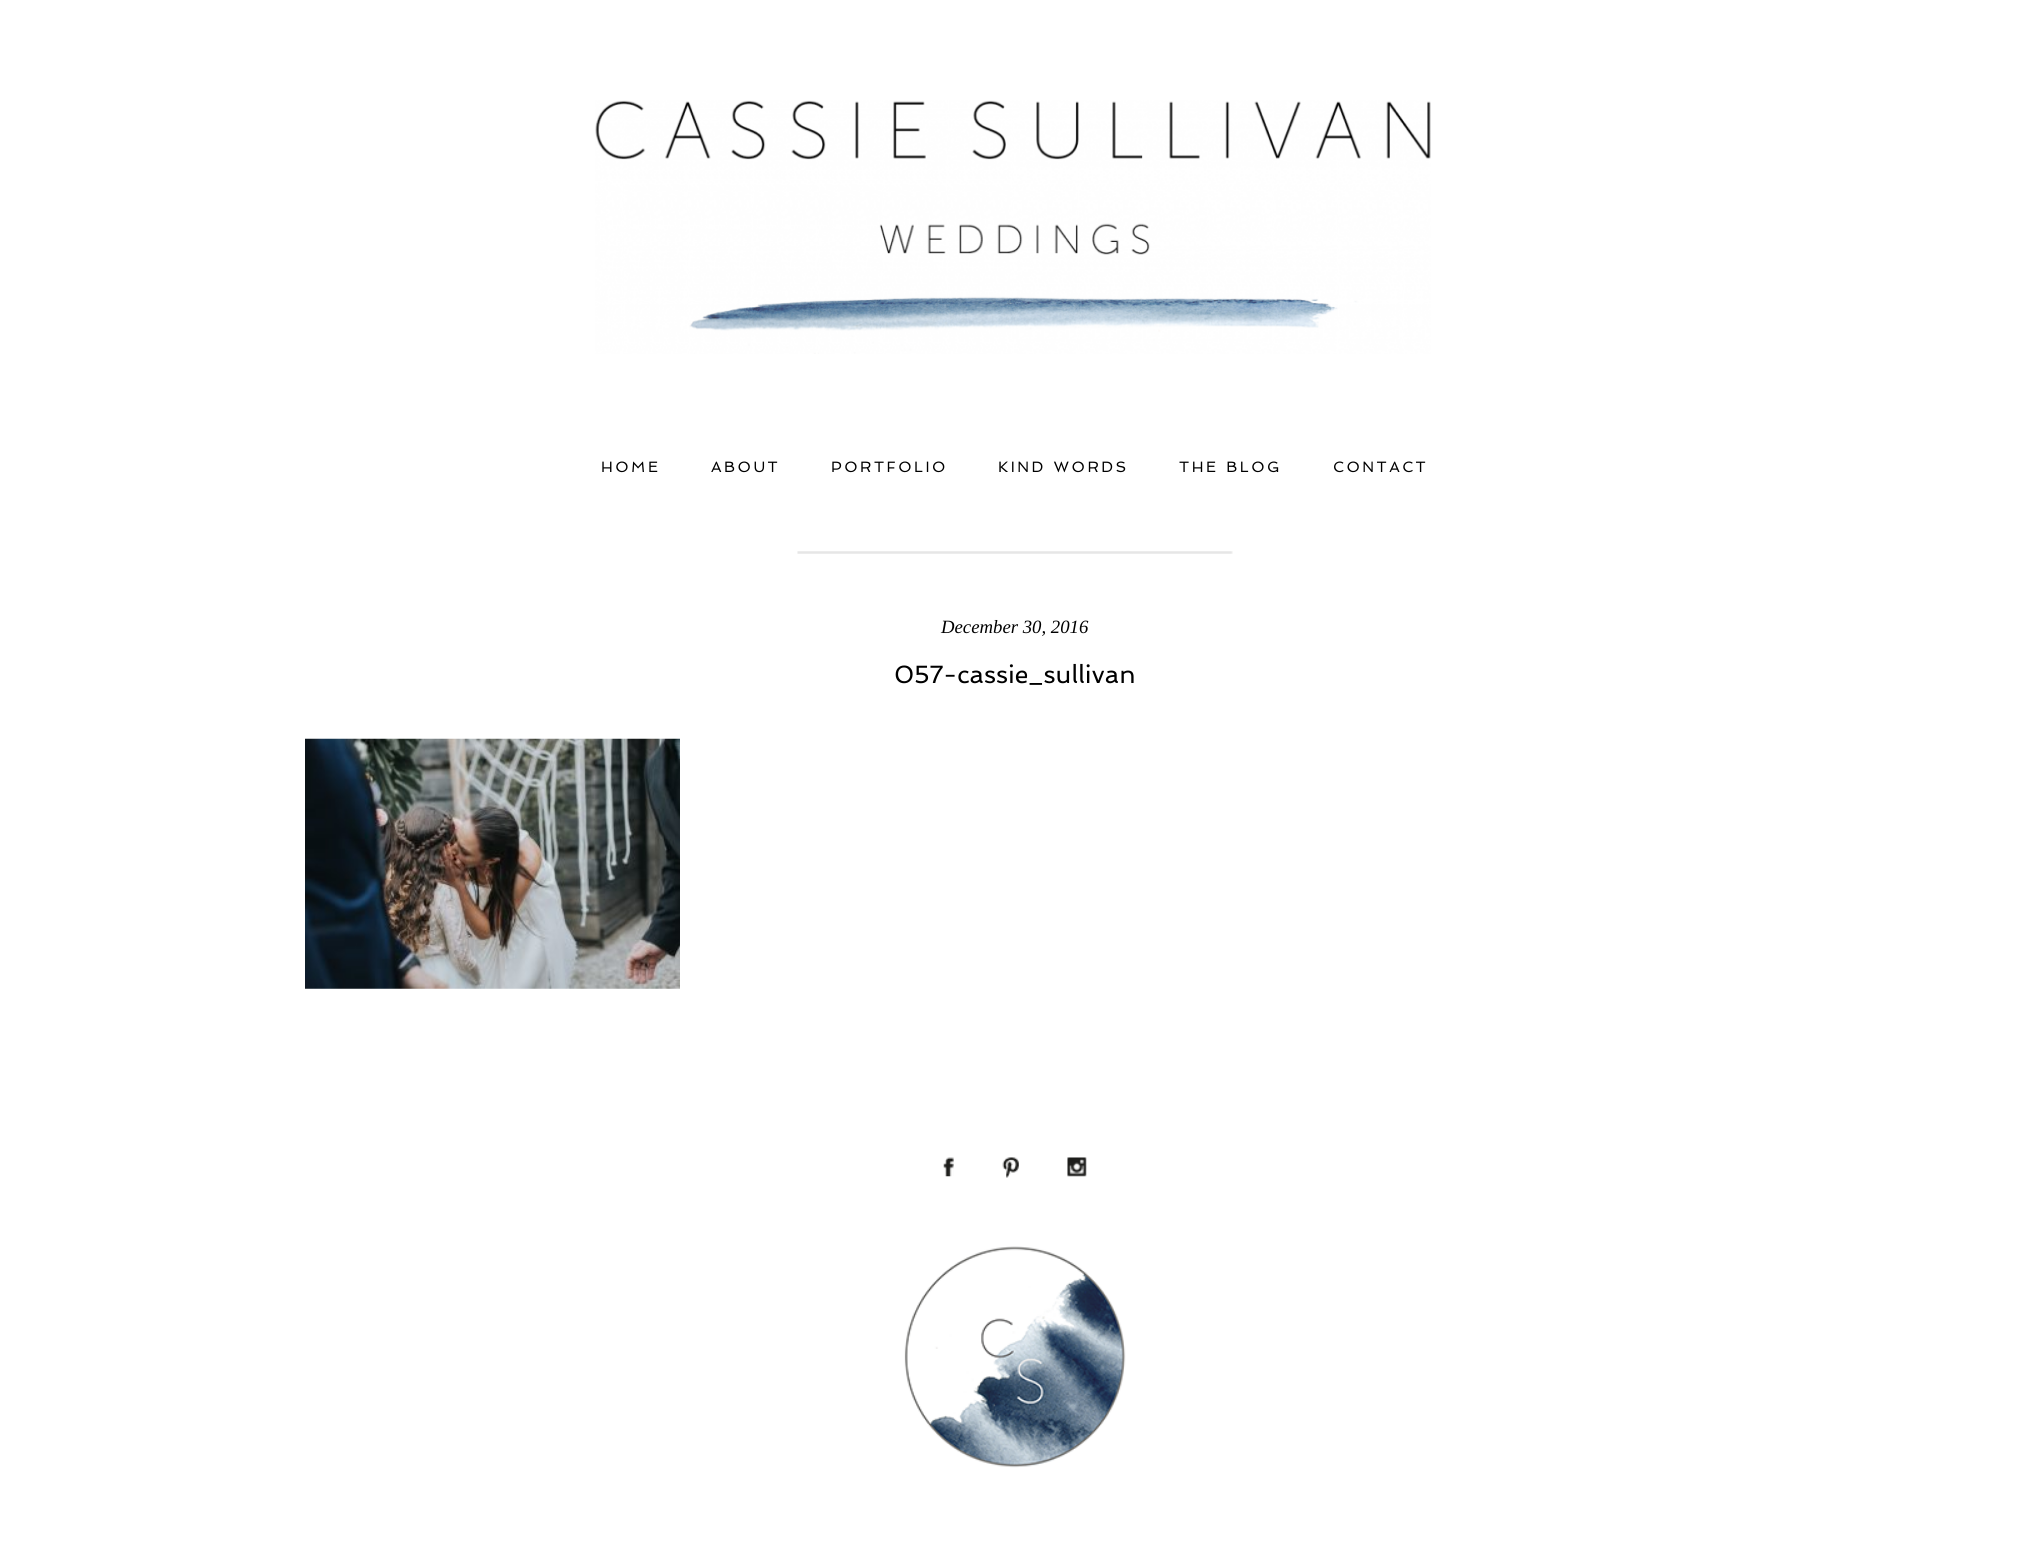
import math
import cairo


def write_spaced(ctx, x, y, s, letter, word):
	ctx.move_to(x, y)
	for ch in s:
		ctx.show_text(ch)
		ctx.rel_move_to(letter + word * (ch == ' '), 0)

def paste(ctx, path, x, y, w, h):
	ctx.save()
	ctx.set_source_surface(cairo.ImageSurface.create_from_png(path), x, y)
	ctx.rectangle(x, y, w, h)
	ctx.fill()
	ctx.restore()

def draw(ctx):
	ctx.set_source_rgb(1, 1, 1)
	ctx.paint()
	paste(ctx, 'media/1.png', 595, 100, 836, 254)
	ctx.select_font_face('Spinnaker')
	ctx.set_font_size(15)
	ctx.set_source_rgb(0, 0, 0)
	for x, y, s in [
		(601, 472, 'HOME'),
		(711, 472, 'ABOUT'),
		(831, 472, 'PORTFOLIO'),
	]:
		write_spaced(ctx, x, y, s, 2.5, 0)
	write_spaced(ctx, 998, 472, 'KIND WORDS', 2.5, 1)
	write_spaced(ctx, 1179, 472, 'THE BLOG', 2.5, 1)
	write_spaced(ctx, 1333, 472, 'CONTACT', 2.5, 0)
	paste(ctx, 'media/2.png', 797, 551, 436, 3)
	ctx.select_font_face('Liberation Serif', cairo.FONT_SLANT_ITALIC)
	ctx.set_font_size(18.75)
	ctx.move_to(941, 633)
	ctx.show_text('December 30, 2016')
	ctx.select_font_face('Spinnaker')
	ctx.set_font_size(25)
	ctx.move_to(894, 683)
	ctx.show_text('057-cassie_sullivan')
	paste(ctx, 'media/3.png', 305, 738, 375, 251)
	paste(ctx, 'media/4.png', 943, 1157, 11, 20)
	paste(ctx, 'media/5.png', 1002, 1157, 17, 21)
	paste(ctx, 'media/6.png', 1067, 1157, 20, 20)
	paste(ctx, 'media/7.png', 904, 1246, 222, 222)


surface = cairo.ImageSurface(cairo.FORMAT_RGB24, 2029, 1548)
ctx = cairo.Context(surface)
options = cairo.FontOptions()
options.set_hint_metrics(cairo.HINT_METRICS_OFF)
options.set_hint_style(cairo.HINT_STYLE_NONE)
ctx.set_font_options(options)
ctx.set_miter_limit(4)
draw(ctx)
surface.write_to_png('image.png')
